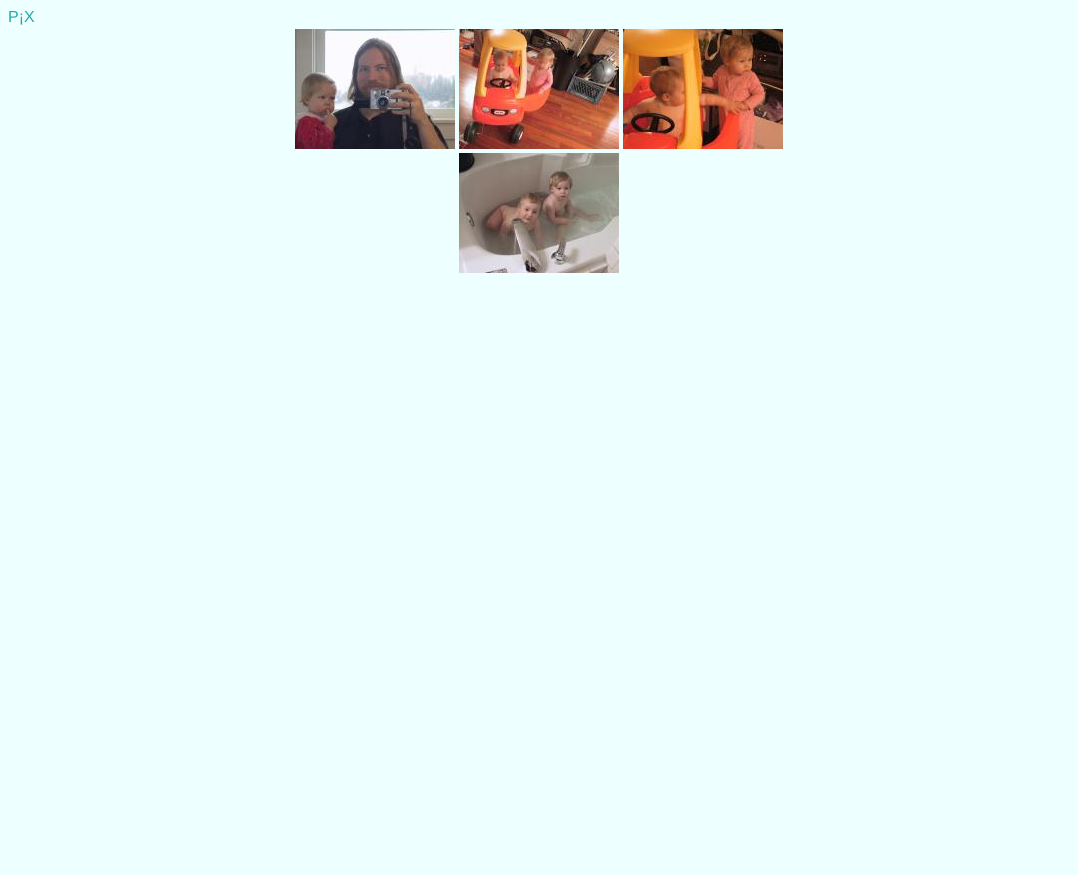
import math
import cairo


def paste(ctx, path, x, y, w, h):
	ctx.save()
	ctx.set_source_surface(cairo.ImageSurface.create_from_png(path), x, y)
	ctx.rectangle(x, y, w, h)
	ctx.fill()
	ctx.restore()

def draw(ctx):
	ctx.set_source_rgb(0.933, 1, 1)
	ctx.paint()
	ctx.select_font_face('Liberation Sans')
	ctx.set_font_size(16)
	ctx.set_source_rgb(0.133, 0.667, 0.667)
	ctx.move_to(8, 22)
	ctx.show_text('P¡X')
	paste(ctx, 'media/1.png', 295, 29, 160, 120)
	paste(ctx, 'media/2.png', 459, 29, 160, 120)
	paste(ctx, 'media/3.png', 623, 29, 160, 120)
	paste(ctx, 'media/4.png', 459, 153, 160, 120)


surface = cairo.ImageSurface(cairo.FORMAT_RGB24, 1078, 875)
ctx = cairo.Context(surface)
options = cairo.FontOptions()
options.set_hint_metrics(cairo.HINT_METRICS_OFF)
options.set_hint_style(cairo.HINT_STYLE_NONE)
ctx.set_font_options(options)
ctx.set_miter_limit(4)
draw(ctx)
surface.write_to_png('image.png')
